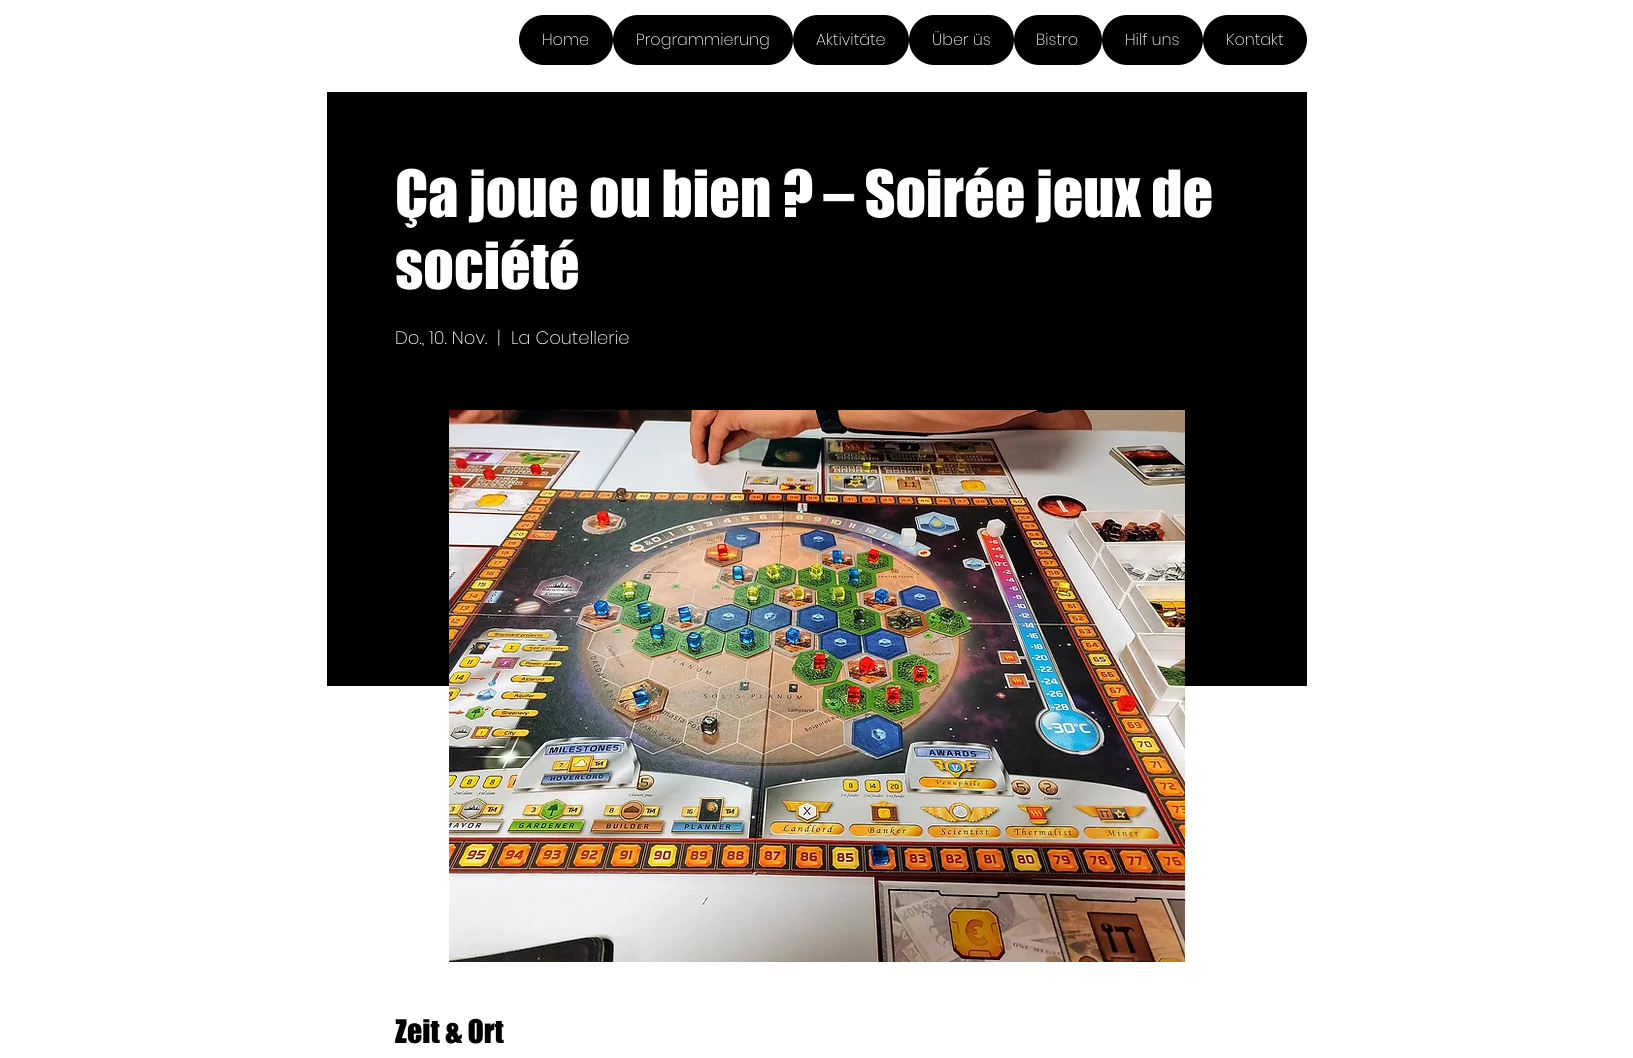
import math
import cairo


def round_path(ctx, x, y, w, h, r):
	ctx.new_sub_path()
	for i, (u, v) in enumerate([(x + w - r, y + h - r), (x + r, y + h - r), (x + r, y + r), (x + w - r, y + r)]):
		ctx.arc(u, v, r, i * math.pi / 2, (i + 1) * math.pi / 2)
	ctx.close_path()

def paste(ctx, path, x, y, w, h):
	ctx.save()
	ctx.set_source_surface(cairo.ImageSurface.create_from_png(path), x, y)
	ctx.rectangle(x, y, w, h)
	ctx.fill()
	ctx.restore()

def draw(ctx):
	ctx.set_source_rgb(1, 1, 1)
	ctx.paint()
	ctx.set_source_rgb(0, 0, 0)
	round_path(ctx, 519, 15, 94, 50, 25)
	ctx.fill()
	ctx.select_font_face('Poppins ExtraLight')
	ctx.set_font_size(16)
	ctx.set_source_rgb(1, 1, 1)
	ctx.move_to(542, 45)
	ctx.show_text('Home')
	ctx.set_source_rgb(0, 0, 0)
	round_path(ctx, 613, 15, 180, 50, 25)
	ctx.fill()
	ctx.set_source_rgb(1, 1, 1)
	ctx.move_to(636, 45)
	ctx.show_text('Programmierung')
	ctx.set_source_rgb(0, 0, 0)
	round_path(ctx, 793, 15, 116, 50, 25)
	ctx.fill()
	ctx.set_source_rgb(1, 1, 1)
	ctx.move_to(816, 45)
	ctx.show_text('Aktivitäte')
	ctx.set_source_rgb(0, 0, 0)
	round_path(ctx, 909, 15, 105, 50, 25)
	ctx.fill()
	ctx.set_source_rgb(1, 1, 1)
	ctx.move_to(932, 45)
	ctx.show_text('Über üs')
	ctx.set_source_rgb(0, 0, 0)
	round_path(ctx, 1014, 15, 88, 50, 25)
	ctx.fill()
	ctx.set_source_rgb(1, 1, 1)
	ctx.move_to(1036, 45)
	ctx.show_text('Bistro')
	ctx.set_source_rgb(0, 0, 0)
	round_path(ctx, 1102, 15, 101, 50, 25)
	ctx.fill()
	ctx.set_source_rgb(1, 1, 1)
	ctx.move_to(1125, 45)
	ctx.show_text('Hilf uns')
	ctx.set_source_rgb(0, 0, 0)
	round_path(ctx, 1203, 15, 104, 50, 25)
	ctx.fill()
	ctx.set_source_rgb(1, 1, 1)
	ctx.move_to(1226, 45)
	ctx.show_text('Kontakt')
	ctx.set_source_rgb(0, 0, 0)
	ctx.rectangle(327, 92, 980, 594)
	ctx.fill()
	ctx.select_font_face('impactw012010')
	ctx.set_font_size(60)
	ctx.set_source_rgb(1, 1, 1)
	ctx.move_to(395, 217)
	ctx.show_text('Ça joue ou bien ? – Soirée jeux de')
	ctx.move_to(395, 289)
	ctx.show_text('société')
	ctx.select_font_face('Poppins ExtraLight')
	ctx.set_font_size(18)
	for x, y, s in [
		(395, 344, 'Do., 10. Nov.'),
		(497, 344, '|'),
		(511, 344, 'La Coutellerie'),
	]:
		ctx.move_to(x, y)
		ctx.show_text(s)
	paste(ctx, 'media/1.png', 449, 410, 736, 552)
	ctx.select_font_face('impactw012010')
	ctx.set_font_size(30)
	ctx.set_source_rgb(0, 0, 0)
	ctx.move_to(395, 1043)
	ctx.show_text('Zeit & Ort')


surface = cairo.ImageSurface(cairo.FORMAT_RGB24, 1633, 1058)
ctx = cairo.Context(surface)
options = cairo.FontOptions()
options.set_hint_metrics(cairo.HINT_METRICS_OFF)
options.set_hint_style(cairo.HINT_STYLE_NONE)
ctx.set_font_options(options)
ctx.set_miter_limit(4)
draw(ctx)
surface.write_to_png('image.png')
